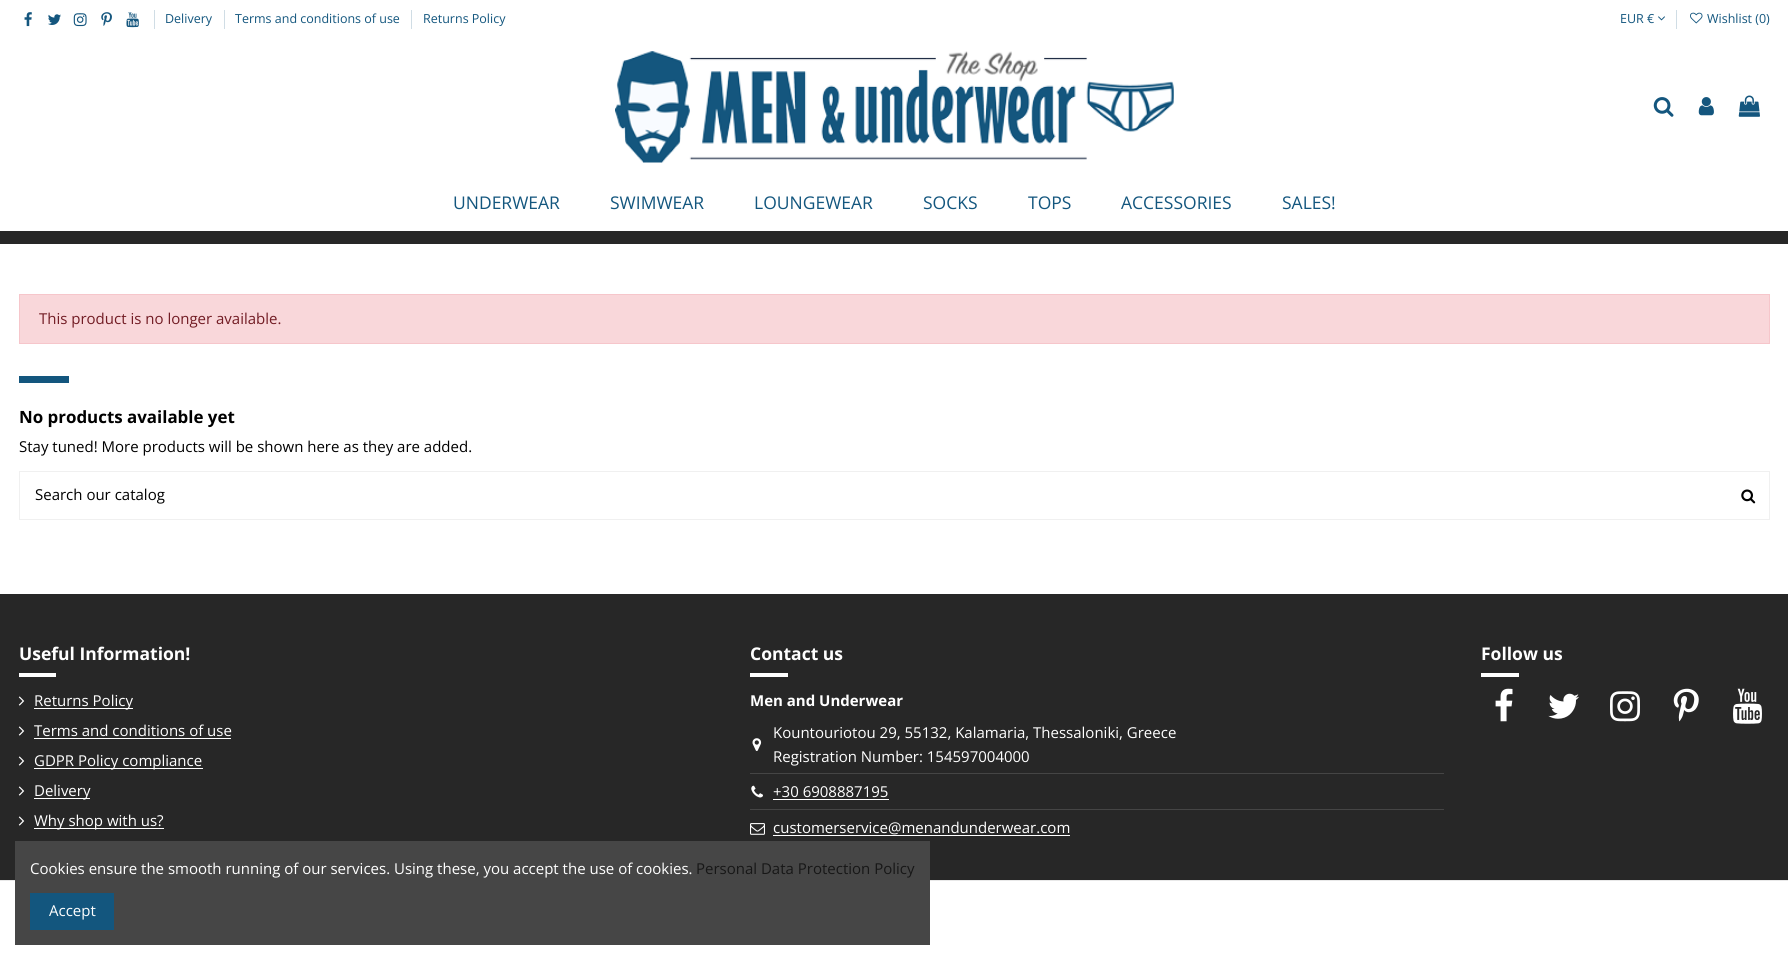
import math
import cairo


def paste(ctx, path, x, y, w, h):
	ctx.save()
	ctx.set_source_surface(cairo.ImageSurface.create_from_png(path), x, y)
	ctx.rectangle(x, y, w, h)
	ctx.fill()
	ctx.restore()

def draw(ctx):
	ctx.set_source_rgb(1, 1, 1)
	ctx.paint()
	paste(ctx, 'media/1.png', 24, 12, 8, 15)
	paste(ctx, 'media/2.png', 48, 14, 13, 11)
	paste(ctx, 'media/3.png', 73, 13, 14, 14)
	paste(ctx, 'media/4.png', 101, 12, 11, 14)
	paste(ctx, 'media/5.png', 126, 12, 13, 16)
	ctx.set_source_rgb(0.816, 0.867, 0.898)
	ctx.rectangle(154, 10, 1, 19)
	ctx.fill()
	ctx.select_font_face('Open Sans')
	ctx.set_font_size(12.5)
	ctx.set_source_rgb(0.078, 0.337, 0.494)
	ctx.move_to(165, 23)
	ctx.show_text('Delivery')
	ctx.set_source_rgb(0.816, 0.867, 0.898)
	ctx.rectangle(224, 10, 1, 19)
	ctx.fill()
	ctx.set_source_rgb(0.078, 0.337, 0.494)
	ctx.move_to(235, 23)
	ctx.show_text('Terms and conditions of use')
	ctx.set_source_rgb(0.816, 0.867, 0.898)
	ctx.rectangle(411, 10, 1, 19)
	ctx.fill()
	ctx.set_source_rgb(0.078, 0.337, 0.494)
	ctx.move_to(423, 23)
	ctx.show_text('Returns Policy')
	ctx.move_to(1620, 23)
	ctx.show_text('EUR €')
	paste(ctx, 'media/6.png', 1658, 16, 7, 5)
	ctx.set_source_rgb(0.816, 0.867, 0.898)
	ctx.rectangle(1676, 10, 1, 19)
	ctx.fill()
	paste(ctx, 'media/7.png', 1690, 12, 13, 12)
	ctx.set_source_rgb(0.078, 0.337, 0.494)
	ctx.move_to(1707, 23)
	ctx.show_text('Wishlist (0)')
	paste(ctx, 'media/8.png', 615, 51, 559, 112)
	paste(ctx, 'media/9.png', 1653, 97, 21, 20)
	paste(ctx, 'media/10.png', 1698, 97, 16, 19)
	paste(ctx, 'media/11.png', 1738, 95, 22, 22)
	ctx.set_font_size(17.5)
	for x, y, s in [
		(453, 209, 'UNDERWEAR'),
		(610, 209, 'SWIMWEAR'),
		(754, 209, 'LOUNGEWEAR'),
		(923, 209, 'SOCKS'),
		(1028, 209, 'TOPS'),
		(1121, 209, 'ACCESSORIES'),
		(1282, 209, 'SALES!'),
	]:
		ctx.move_to(x, y)
		ctx.show_text(s)
	ctx.set_source_rgb(0.153, 0.153, 0.153)
	ctx.rectangle(0, 231, 1788, 13)
	ctx.fill()
	ctx.set_source_rgb(0.973, 0.843, 0.855)
	ctx.rectangle(19.5, 294.5, 1750, 49)
	ctx.fill_preserve()
	ctx.set_source_rgb(0.961, 0.776, 0.796)
	ctx.set_line_width(1)
	ctx.stroke()
	ctx.set_font_size(15)
	ctx.set_source_rgb(0.447, 0.11, 0.141)
	ctx.move_to(39, 324)
	ctx.show_text('This product is no longer available.')
	ctx.set_source_rgb(0.078, 0.337, 0.494)
	ctx.rectangle(19, 376, 50, 7)
	ctx.fill()
	ctx.select_font_face('Open Sans', cairo.FONT_SLANT_NORMAL, cairo.FONT_WEIGHT_BOLD)
	ctx.set_font_size(16.9)
	ctx.set_source_rgb(0, 0, 0)
	ctx.move_to(19, 423)
	ctx.show_text('No products available yet')
	ctx.select_font_face('Open Sans')
	ctx.set_font_size(15)
	ctx.move_to(19, 452)
	ctx.show_text('Stay tuned! More products will be shown here as they are added.')
	ctx.rectangle(19.5, 471.5, 1750, 48)
	ctx.set_source_rgb(0.941, 0.941, 0.941)
	ctx.stroke()
	ctx.set_source_rgb(0, 0, 0)
	ctx.move_to(35, 500)
	ctx.show_text('Search our catalog')
	paste(ctx, 'media/12.png', 1741, 489, 15, 15)
	ctx.set_source_rgb(0.153, 0.153, 0.153)
	ctx.rectangle(0, 594, 1788, 286)
	ctx.fill()
	ctx.select_font_face('Open Sans', cairo.FONT_SLANT_NORMAL, cairo.FONT_WEIGHT_BOLD)
	ctx.set_font_size(17.5)
	ctx.set_source_rgb(1, 1, 1)
	ctx.move_to(19, 660)
	ctx.show_text('Useful Information!')
	ctx.rectangle(19, 673, 37, 4)
	ctx.fill()
	paste(ctx, 'media/13.png', 18, 696, 7, 10)
	ctx.rectangle(34, 708, 99, 1)
	ctx.fill()
	ctx.select_font_face('Open Sans')
	ctx.set_font_size(15)
	ctx.move_to(34, 706)
	ctx.show_text('Returns Policy')
	paste(ctx, 'media/13.png', 18, 726, 7, 10)
	ctx.move_to(34, 736)
	ctx.show_text('Terms and conditions of use')
	ctx.rectangle(34, 738, 197, 1)
	ctx.fill()
	paste(ctx, 'media/13.png', 18, 756, 7, 10)
	ctx.rectangle(34, 768, 169, 1)
	ctx.fill()
	ctx.move_to(34, 766)
	ctx.show_text('GDPR Policy compliance')
	paste(ctx, 'media/13.png', 18, 786, 7, 10)
	ctx.rectangle(34, 798, 56, 1)
	ctx.fill()
	ctx.move_to(34, 796)
	ctx.show_text('Delivery')
	paste(ctx, 'media/13.png', 18, 816, 7, 10)
	ctx.rectangle(34, 828, 130, 1)
	ctx.fill()
	ctx.move_to(34, 826)
	ctx.show_text('Why shop with us?')
	ctx.select_font_face('Open Sans', cairo.FONT_SLANT_NORMAL, cairo.FONT_WEIGHT_BOLD)
	ctx.set_font_size(17.5)
	ctx.move_to(750, 660)
	ctx.show_text('Contact us')
	ctx.rectangle(750, 673, 38, 4)
	ctx.fill()
	ctx.set_font_size(15)
	ctx.move_to(750, 706)
	ctx.show_text('Men and Underwear')
	paste(ctx, 'media/14.png', 752, 738, 10, 13)
	ctx.select_font_face('Open Sans')
	ctx.move_to(773, 738)
	ctx.show_text('Kountouriotou 29, 55132, Kalamaria, Thessaloniki, Greece')
	ctx.move_to(773, 762)
	ctx.show_text('Registration Number: 154597004000')
	ctx.set_source_rgb(0.271, 0.271, 0.271)
	ctx.rectangle(750, 773, 694, 1)
	ctx.fill()
	paste(ctx, 'media/15.png', 751, 785, 12, 13)
	ctx.set_source_rgb(1, 1, 1)
	ctx.move_to(773, 797)
	ctx.show_text('+30 6908887195')
	ctx.rectangle(773, 799, 116, 1)
	ctx.fill()
	ctx.set_source_rgb(0.271, 0.271, 0.271)
	ctx.rectangle(750, 809, 694, 1)
	ctx.fill()
	paste(ctx, 'media/16.png', 750, 823, 15, 12)
	ctx.set_source_rgb(1, 1, 1)
	ctx.move_to(773, 833)
	ctx.show_text('customerservice@menandunderwear.com')
	ctx.rectangle(773, 835, 297, 1)
	ctx.fill()
	ctx.select_font_face('Open Sans', cairo.FONT_SLANT_NORMAL, cairo.FONT_WEIGHT_BOLD)
	ctx.set_font_size(17.5)
	ctx.move_to(1481, 660)
	ctx.show_text('Follow us')
	ctx.rectangle(1481, 673, 38, 4)
	ctx.fill()
	paste(ctx, 'media/17.png', 1495, 688, 18, 34)
	paste(ctx, 'media/18.png', 1548, 693, 31, 26)
	paste(ctx, 'media/19.png', 1610, 691, 30, 31)
	paste(ctx, 'media/20.png', 1673, 688, 26, 34)
	paste(ctx, 'media/21.png', 1733, 688, 29, 36)
	ctx.set_source_rgb(0.91, 0.91, 0.91)
	ctx.rectangle(0, 880, 1788, 1)
	ctx.fill()
	ctx.set_source_rgb(0.275, 0.275, 0.275)
	ctx.rectangle(15, 841, 915, 104)
	ctx.fill()
	ctx.select_font_face('Open Sans')
	ctx.set_font_size(15)
	ctx.set_source_rgb(1, 1, 1)
	ctx.move_to(30, 874)
	ctx.show_text('Cookies ensure the smooth running of our services. Using these, you accept the use of cookies.')
	ctx.set_source_rgb(0.09, 0.09, 0.09)
	ctx.move_to(696, 874)
	ctx.show_text('Personal Data Protection Policy')
	ctx.set_source_rgb(0.078, 0.337, 0.494)
	ctx.rectangle(30, 893, 84, 37)
	ctx.fill()
	ctx.set_source_rgb(1, 1, 1)
	ctx.move_to(49, 916)
	ctx.show_text('Accept')


surface = cairo.ImageSurface(cairo.FORMAT_RGB24, 1788, 960)
ctx = cairo.Context(surface)
options = cairo.FontOptions()
options.set_hint_metrics(cairo.HINT_METRICS_OFF)
options.set_hint_style(cairo.HINT_STYLE_NONE)
ctx.set_font_options(options)
ctx.set_miter_limit(4)
draw(ctx)
surface.write_to_png('image.png')
